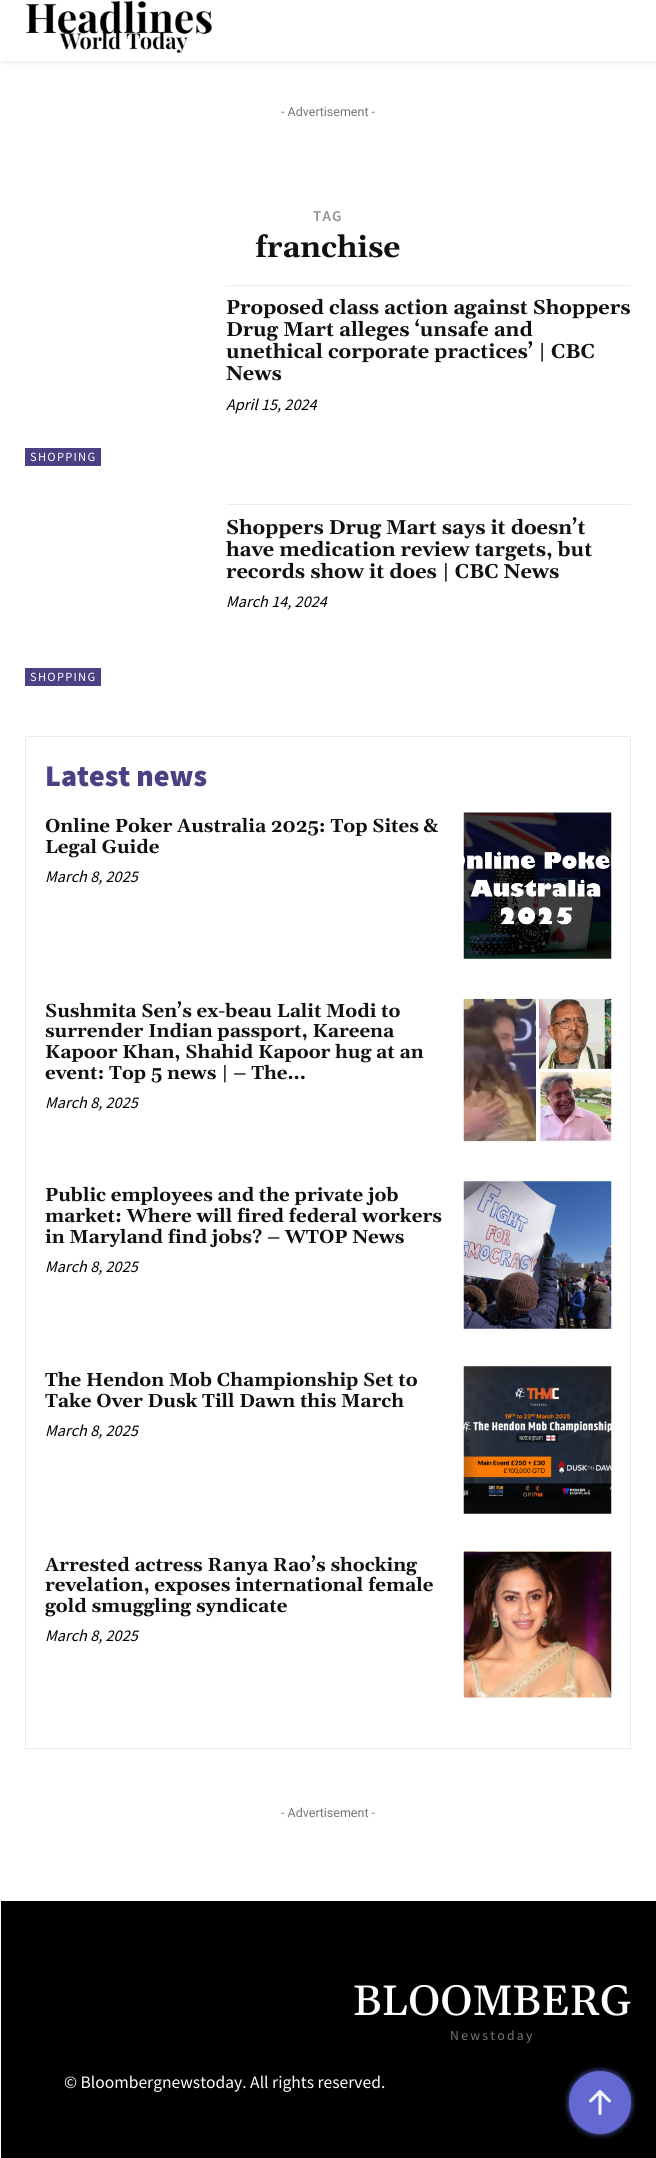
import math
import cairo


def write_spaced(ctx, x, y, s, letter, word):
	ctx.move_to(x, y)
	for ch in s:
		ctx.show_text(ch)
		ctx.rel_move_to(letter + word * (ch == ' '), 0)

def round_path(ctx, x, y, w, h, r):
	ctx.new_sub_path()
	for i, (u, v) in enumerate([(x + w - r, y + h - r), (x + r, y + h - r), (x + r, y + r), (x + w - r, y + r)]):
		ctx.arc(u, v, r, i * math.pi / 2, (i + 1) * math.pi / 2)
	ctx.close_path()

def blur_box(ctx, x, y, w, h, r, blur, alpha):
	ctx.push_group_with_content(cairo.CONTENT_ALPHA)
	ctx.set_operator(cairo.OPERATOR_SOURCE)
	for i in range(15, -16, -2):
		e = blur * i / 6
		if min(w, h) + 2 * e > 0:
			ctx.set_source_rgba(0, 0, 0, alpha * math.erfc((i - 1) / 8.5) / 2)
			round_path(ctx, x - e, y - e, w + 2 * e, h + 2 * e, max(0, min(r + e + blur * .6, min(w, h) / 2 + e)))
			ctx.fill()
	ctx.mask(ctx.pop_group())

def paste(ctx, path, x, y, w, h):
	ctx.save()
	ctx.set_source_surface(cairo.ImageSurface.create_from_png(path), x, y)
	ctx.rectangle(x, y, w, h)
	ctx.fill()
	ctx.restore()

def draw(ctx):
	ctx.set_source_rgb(1, 1, 1)
	ctx.paint()
	paste(ctx, 'media/1.png', 25, 1, 187, 52)
	ctx.save()
	ctx.rectangle(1, 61, 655, 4)
	ctx.clip()
	ctx.set_source_rgb(0, 0, 0)
	blur_box(ctx, 1, 3, 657, 61, 0, 2.5, 0.06)
	ctx.restore()
	ctx.select_font_face('Roboto')
	ctx.set_font_size(12.5)
	ctx.set_source_rgb(0.463, 0.463, 0.463)
	ctx.move_to(281, 116)
	ctx.show_text('- Advertisement -')
	ctx.select_font_face('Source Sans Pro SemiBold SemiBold')
	ctx.set_font_size(15)
	ctx.set_source_rgb(0.569, 0.569, 0.569)
	write_spaced(ctx, 313, 221, 'TAG', 1.25, 0)
	ctx.select_font_face('Gelasio', cairo.FONT_SLANT_NORMAL, cairo.FONT_WEIGHT_BOLD)
	ctx.set_font_size(30)
	ctx.set_source_rgb(0.067, 0.067, 0.067)
	ctx.move_to(255, 257)
	ctx.show_text('franchise')
	ctx.set_source_rgb(0.918, 0.918, 0.918)
	ctx.rectangle(226, 285, 405, 1)
	ctx.fill()
	ctx.set_font_size(20)
	ctx.set_source_rgb(0.067, 0.067, 0.067)
	for x, y, s in [
		(226, 314, 'Proposed class action against Shoppers'),
		(226, 336, 'Drug Mart alleges ‘unsafe and'),
		(226, 358, 'unethical corporate practices’ | CBC'),
		(226, 380, 'News'),
	]:
		ctx.move_to(x, y)
		ctx.show_text(s)
	ctx.select_font_face('Source Sans Pro', cairo.FONT_SLANT_ITALIC)
	ctx.set_font_size(16.25)
	ctx.set_source_rgb(0, 0, 0)
	ctx.move_to(226, 410)
	ctx.show_text('April 15, 2024')
	ctx.set_source_rgb(0.298, 0.251, 0.518)
	ctx.rectangle(25, 448, 76, 18)
	ctx.fill()
	ctx.select_font_face('Source Sans Pro')
	ctx.set_font_size(12.5)
	ctx.set_source_rgb(1, 1, 1)
	write_spaced(ctx, 30, 461, 'SHOPPING', 1.25, 0)
	ctx.set_source_rgb(0.918, 0.918, 0.918)
	ctx.rectangle(226, 504, 405, 1)
	ctx.fill()
	ctx.select_font_face('Gelasio', cairo.FONT_SLANT_NORMAL, cairo.FONT_WEIGHT_BOLD)
	ctx.set_font_size(20)
	ctx.set_source_rgb(0.067, 0.067, 0.067)
	for x, y, s in [
		(226, 534, 'Shoppers Drug Mart says it doesn’t'),
		(226, 556, 'have medication review targets, but'),
		(226, 578, 'records show it does | CBC News'),
	]:
		ctx.move_to(x, y)
		ctx.show_text(s)
	ctx.select_font_face('Source Sans Pro', cairo.FONT_SLANT_ITALIC)
	ctx.set_font_size(16.25)
	ctx.set_source_rgb(0, 0, 0)
	ctx.move_to(226, 607)
	ctx.show_text('March 14, 2024')
	ctx.set_source_rgb(0.298, 0.251, 0.518)
	ctx.rectangle(25, 668, 76, 18)
	ctx.fill()
	ctx.select_font_face('Source Sans Pro')
	ctx.set_font_size(12.5)
	ctx.set_source_rgb(1, 1, 1)
	write_spaced(ctx, 30, 681, 'SHOPPING', 1.25, 0)
	ctx.rectangle(25.5, 736.5, 605, 1012)
	ctx.set_source_rgb(0.918, 0.918, 0.918)
	ctx.set_line_width(1)
	ctx.stroke()
	ctx.select_font_face('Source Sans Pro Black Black')
	ctx.set_font_size(30)
	ctx.set_source_rgb(0.298, 0.251, 0.518)
	ctx.move_to(45, 786)
	ctx.show_text('Latest news')
	ctx.select_font_face('Gelasio', cairo.FONT_SLANT_NORMAL, cairo.FONT_WEIGHT_BOLD)
	ctx.set_font_size(18.75)
	ctx.set_source_rgb(0.067, 0.067, 0.067)
	ctx.move_to(45, 832)
	ctx.show_text('Online Poker Australia 2025: Top Sites &')
	ctx.move_to(45, 853)
	ctx.show_text('Legal Guide')
	ctx.select_font_face('Source Sans Pro', cairo.FONT_SLANT_ITALIC)
	ctx.set_font_size(16.25)
	ctx.set_source_rgb(0, 0, 0)
	ctx.move_to(45, 882)
	ctx.show_text('March 8, 2025')
	paste(ctx, 'media/2.png', 463, 812, 149, 147)
	ctx.select_font_face('Gelasio', cairo.FONT_SLANT_NORMAL, cairo.FONT_WEIGHT_BOLD)
	ctx.set_font_size(18.75)
	ctx.set_source_rgb(0.067, 0.067, 0.067)
	for x, y, s in [
		(45, 1017, 'Sushmita Sen’s ex-beau Lalit Modi to'),
		(45, 1037, 'surrender Indian passport, Kareena'),
		(45, 1058, 'Kapoor Khan, Shahid Kapoor hug at an'),
		(45, 1079, 'event: Top 5 news | – The...'),
	]:
		ctx.move_to(x, y)
		ctx.show_text(s)
	ctx.select_font_face('Source Sans Pro', cairo.FONT_SLANT_ITALIC)
	ctx.set_font_size(16.25)
	ctx.set_source_rgb(0, 0, 0)
	ctx.move_to(45, 1108)
	ctx.show_text('March 8, 2025')
	paste(ctx, 'media/3.png', 463, 997, 149, 146)
	ctx.select_font_face('Gelasio', cairo.FONT_SLANT_NORMAL, cairo.FONT_WEIGHT_BOLD)
	ctx.set_font_size(18.75)
	ctx.set_source_rgb(0.067, 0.067, 0.067)
	for x, y, s in [
		(45, 1201, 'Public employees and the private job'),
		(45, 1222, 'market: Where will fired federal workers'),
		(45, 1243, 'in Maryland find jobs? – WTOP News'),
	]:
		ctx.move_to(x, y)
		ctx.show_text(s)
	ctx.select_font_face('Source Sans Pro', cairo.FONT_SLANT_ITALIC)
	ctx.set_font_size(16.25)
	ctx.set_source_rgb(0, 0, 0)
	ctx.move_to(45, 1272)
	ctx.show_text('March 8, 2025')
	paste(ctx, 'media/4.png', 463, 1181, 149, 148)
	ctx.select_font_face('Gelasio', cairo.FONT_SLANT_NORMAL, cairo.FONT_WEIGHT_BOLD)
	ctx.set_font_size(18.75)
	ctx.set_source_rgb(0.067, 0.067, 0.067)
	ctx.move_to(45, 1386)
	ctx.show_text('The Hendon Mob Championship Set to')
	ctx.move_to(45, 1407)
	ctx.show_text('Take Over Dusk Till Dawn this March')
	ctx.select_font_face('Source Sans Pro', cairo.FONT_SLANT_ITALIC)
	ctx.set_font_size(16.25)
	ctx.set_source_rgb(0, 0, 0)
	ctx.move_to(45, 1436)
	ctx.show_text('March 8, 2025')
	paste(ctx, 'media/5.png', 463, 1366, 149, 148)
	ctx.select_font_face('Gelasio', cairo.FONT_SLANT_NORMAL, cairo.FONT_WEIGHT_BOLD)
	ctx.set_font_size(18.75)
	ctx.set_source_rgb(0.067, 0.067, 0.067)
	for x, y, s in [
		(45, 1571, 'Arrested actress Ranya Rao’s shocking'),
		(45, 1591, 'revelation, exposes international female'),
		(45, 1612, 'gold smuggling syndicate'),
	]:
		ctx.move_to(x, y)
		ctx.show_text(s)
	ctx.select_font_face('Source Sans Pro', cairo.FONT_SLANT_ITALIC)
	ctx.set_font_size(16.25)
	ctx.set_source_rgb(0, 0, 0)
	ctx.move_to(45, 1641)
	ctx.show_text('March 8, 2025')
	paste(ctx, 'media/6.png', 463, 1551, 149, 147)
	ctx.select_font_face('Roboto')
	ctx.set_font_size(12.5)
	ctx.set_source_rgb(0.463, 0.463, 0.463)
	ctx.move_to(281, 1817)
	ctx.show_text('- Advertisement -')
	ctx.set_source_rgb(0, 0, 0)
	ctx.rectangle(1, 1901, 655, 257)
	ctx.fill()
	ctx.select_font_face('Gelasio Medium')
	ctx.set_font_size(42.5)
	ctx.set_source_rgb(1, 1, 1)
	ctx.move_to(353, 2015)
	ctx.show_text('BLOOMBERG')
	ctx.select_font_face('Source Sans Pro')
	ctx.set_font_size(13.75)
	ctx.set_source_rgb(0.463, 0.463, 0.463)
	write_spaced(ctx, 450, 2040, 'Newstoday', 2.25, 0)
	ctx.set_font_size(17.5)
	ctx.set_source_rgb(1, 1, 1)
	ctx.move_to(64, 2088)
	ctx.show_text('© Bloombergnewstoday. All rights reserved.')
	ctx.set_source_rgb(0.388, 0.412, 0.82)
	blur_box(ctx, 569, 2071, 62, 63, 31, 3, 1)
	ctx.set_source_rgb(0.388, 0.412, 0.82)
	round_path(ctx, 569, 2071, 62, 63, 31)
	ctx.fill()
	paste(ctx, 'media/7.png', 589, 2090, 22, 25)


surface = cairo.ImageSurface(cairo.FORMAT_RGB24, 656, 2158)
ctx = cairo.Context(surface)
options = cairo.FontOptions()
options.set_hint_metrics(cairo.HINT_METRICS_OFF)
options.set_hint_style(cairo.HINT_STYLE_NONE)
ctx.set_font_options(options)
ctx.set_miter_limit(4)
draw(ctx)
surface.write_to_png('image.png')
